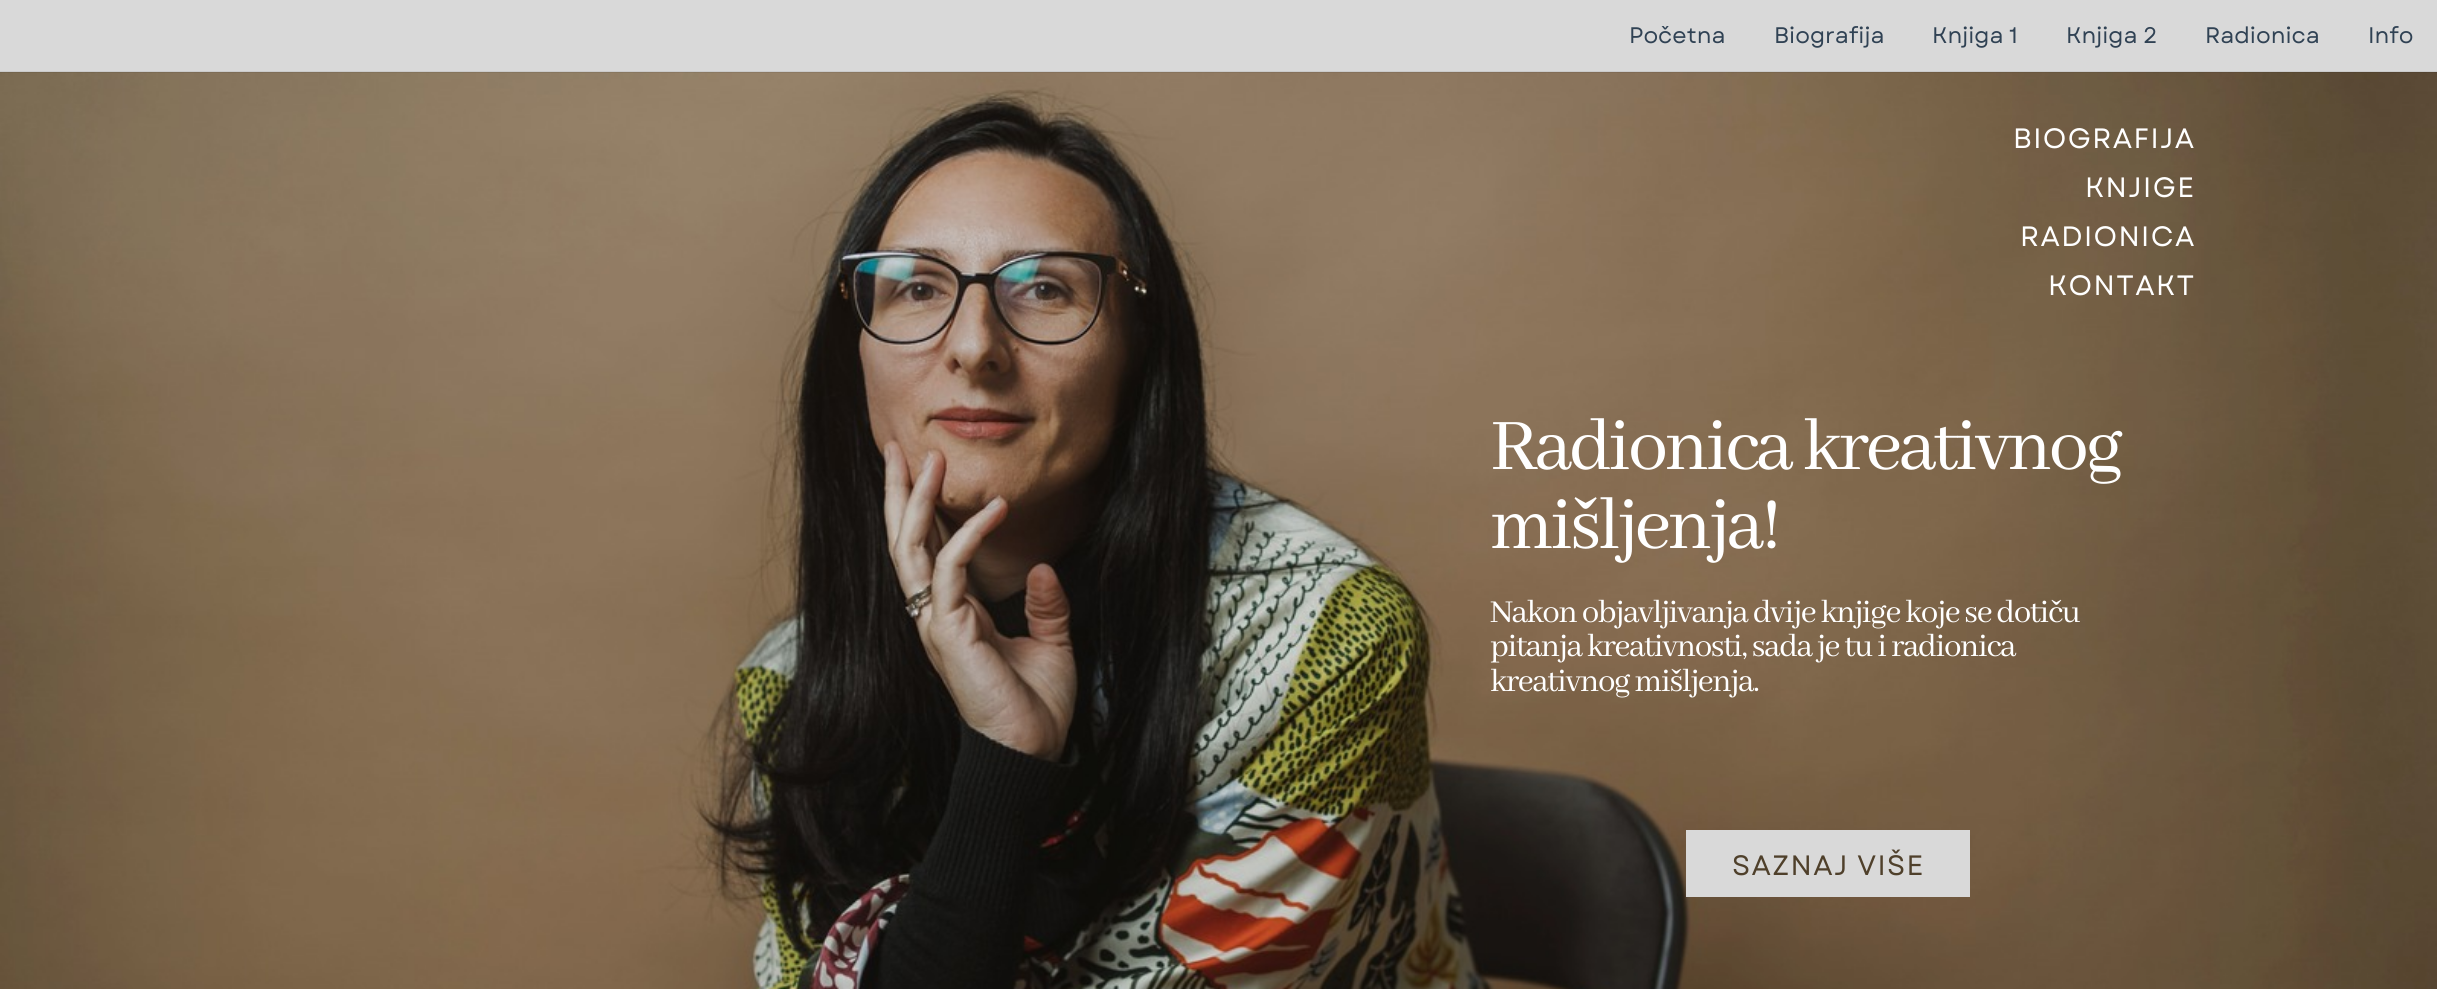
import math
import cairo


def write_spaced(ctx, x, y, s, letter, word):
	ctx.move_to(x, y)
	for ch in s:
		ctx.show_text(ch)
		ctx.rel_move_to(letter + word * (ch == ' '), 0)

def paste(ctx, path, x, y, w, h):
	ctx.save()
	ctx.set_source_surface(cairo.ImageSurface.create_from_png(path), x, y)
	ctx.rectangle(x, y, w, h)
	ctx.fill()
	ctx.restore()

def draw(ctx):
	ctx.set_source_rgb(1, 1, 1)
	ctx.paint()
	ctx.set_source_rgb(0.851, 0.851, 0.851)
	ctx.rectangle(0, 0, 2437, 72)
	ctx.fill()
	paste(ctx, 'media/1.png', 0, 72, 2437, 917)
	ctx.set_source_rgba(0, 0, 0, 0.07)
	ctx.rectangle(0, 71, 2437, 2)
	ctx.fill()
	ctx.select_font_face('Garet')
	ctx.set_font_size(22.5)
	ctx.set_source_rgb(0.188, 0.259, 0.329)
	for x, y, s in [
		(1629, 43, 'Početna'),
		(1774, 43, 'Biografija'),
		(1932, 43, 'Knjiga 1'),
		(2066, 43, 'Knjiga 2'),
		(2205, 43, 'Radionica'),
		(2368, 43, 'Info'),
	]:
		ctx.move_to(x, y)
		ctx.show_text(s)
	ctx.set_font_size(28)
	ctx.set_source_rgb(1, 1, 1)
	for x, y, s in [
		(2013, 148, 'BIOGRAFIJA'),
		(2085, 197, 'KNJIGE'),
		(2020, 246, 'RADIONICA'),
		(2048, 295, 'KONTAKT'),
	]:
		write_spaced(ctx, x, y, s, 1.4, 0)
	ctx.select_font_face('Abhaya Libre')
	ctx.set_font_size(80)
	write_spaced(ctx, 1490, 469, 'Radionica kreativnog', -3.25, 0)
	write_spaced(ctx, 1490, 548, 'mišljenja!', -3.25, 0)
	ctx.set_font_size(35)
	for x, y, s in [
		(1490, 622, 'Nakon objavljivanja dvije knjige koje se dotiču'),
		(1490, 656, 'pitanja kreativnosti, sada je tu i radionica'),
		(1490, 691, 'kreativnog mišljenja.'),
	]:
		write_spaced(ctx, x, y, s, -1.4, 0)
	ctx.set_source_rgb(0.851, 0.851, 0.851)
	ctx.rectangle(1686, 830, 284, 67)
	ctx.fill()
	ctx.select_font_face('Garet')
	ctx.set_font_size(28)
	ctx.set_source_rgb(0.31, 0.251, 0.169)
	write_spaced(ctx, 1732, 875, 'SAZNAJ VIŠE', 1.4, 0)


surface = cairo.ImageSurface(cairo.FORMAT_RGB24, 2437, 989)
ctx = cairo.Context(surface)
options = cairo.FontOptions()
options.set_hint_metrics(cairo.HINT_METRICS_OFF)
options.set_hint_style(cairo.HINT_STYLE_NONE)
ctx.set_font_options(options)
ctx.set_miter_limit(4)
draw(ctx)
surface.write_to_png('image.png')
